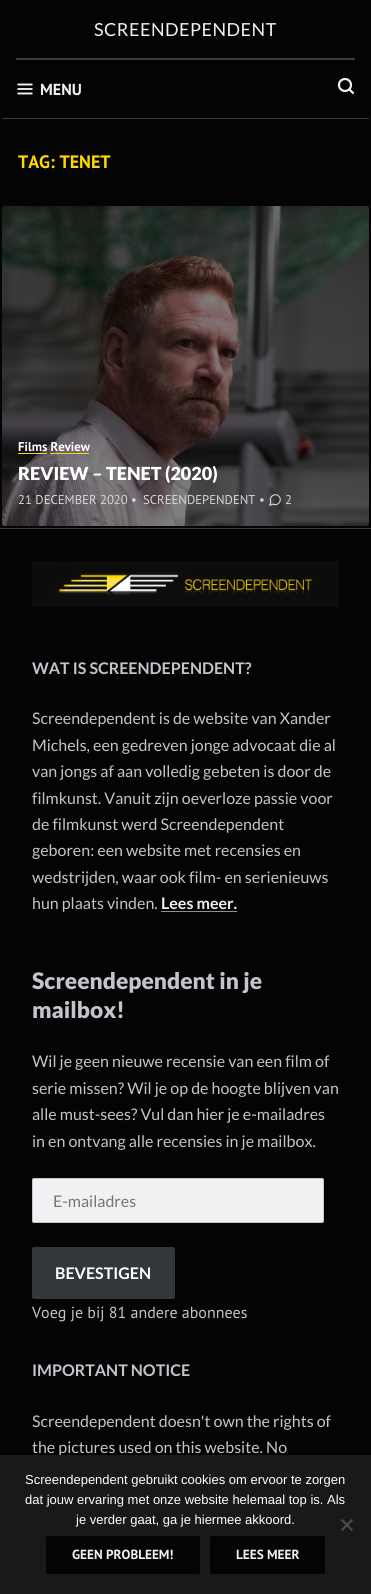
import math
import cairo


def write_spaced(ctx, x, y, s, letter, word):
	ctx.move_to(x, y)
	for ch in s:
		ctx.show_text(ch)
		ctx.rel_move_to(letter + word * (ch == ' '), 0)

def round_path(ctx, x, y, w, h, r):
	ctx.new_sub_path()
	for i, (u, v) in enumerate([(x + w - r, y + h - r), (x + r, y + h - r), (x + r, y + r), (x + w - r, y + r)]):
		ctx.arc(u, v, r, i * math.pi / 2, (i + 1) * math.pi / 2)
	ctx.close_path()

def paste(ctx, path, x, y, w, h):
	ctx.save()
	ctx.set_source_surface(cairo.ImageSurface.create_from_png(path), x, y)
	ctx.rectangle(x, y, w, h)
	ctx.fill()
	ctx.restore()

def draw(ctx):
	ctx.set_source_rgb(0.016, 0.016, 0.02)
	ctx.paint()
	ctx.select_font_face('Lato')
	ctx.set_font_size(18)
	ctx.set_source_rgb(0.945, 0.945, 0.953)
	write_spaced(ctx, 94, 36, 'SCREENDEPENDENT', 0.5, 0)
	ctx.set_source_rgb(0.231, 0.231, 0.271)
	ctx.rectangle(16, 58, 339, 2)
	ctx.fill()
	paste(ctx, 'media/1.png', 17, 83, 16, 12)
	ctx.select_font_face('PT Sans', cairo.FONT_SLANT_NORMAL, cairo.FONT_WEIGHT_BOLD)
	ctx.set_font_size(16)
	ctx.set_source_rgb(0.945, 0.945, 0.953)
	ctx.move_to(40, 95)
	ctx.show_text('MENU')
	ctx.new_path()
	ctx.arc(345, 85, 6, 0, 2 * math.pi)
	ctx.set_line_width(2.2)
	ctx.stroke()
	ctx.new_path()
	ctx.move_to(353, 93)
	ctx.line_to(349.5, 89.5)
	ctx.set_line_cap(cairo.LINE_CAP_ROUND)
	ctx.set_line_join(cairo.LINE_JOIN_ROUND)
	ctx.stroke()
	ctx.set_source_rgb(0.231, 0.231, 0.271)
	ctx.rectangle(2, 118, 367, 1)
	ctx.fill()
	ctx.set_font_size(18)
	ctx.set_source_rgb(1, 0.847, 0)
	ctx.move_to(18, 168)
	ctx.show_text('TAG: TENET')
	paste(ctx, 'media/2.png', 2, 206, 367, 320)
	ctx.set_font_size(12.75)
	ctx.set_source_rgb(1, 1, 1)
	ctx.move_to(18, 451)
	ctx.show_text('Films Review')
	ctx.set_source_rgb(1, 0.847, 0)
	ctx.rectangle(18, 453, 29, 1)
	ctx.fill()
	ctx.rectangle(50, 453, 39, 1)
	ctx.fill()
	ctx.select_font_face('Lato Black')
	ctx.set_font_size(18)
	ctx.set_source_rgb(1, 1, 1)
	ctx.move_to(18, 480)
	ctx.show_text('REVIEW – TENET (2020)')
	ctx.select_font_face('PT Sans')
	ctx.set_font_size(12.75)
	ctx.set_source_rgb(0.839, 0.835, 0.839)
	ctx.move_to(18, 504)
	ctx.show_text('21 DECEMBER 2020')
	ctx.set_source_rgb(0.867, 0.859, 0.867)
	ctx.move_to(131, 504)
	ctx.show_text('•')
	ctx.set_source_rgb(0.839, 0.835, 0.839)
	ctx.move_to(143, 504)
	ctx.show_text('SCREENDEPENDENT')
	ctx.move_to(259, 504)
	ctx.show_text('•')
	paste(ctx, 'media/3.png', 269, 494, 12, 12)
	ctx.set_source_rgb(0.816, 0.816, 0.82)
	ctx.move_to(285, 504)
	ctx.show_text('2')
	ctx.set_source_rgb(0.231, 0.231, 0.271)
	ctx.rectangle(0, 528, 371, 1)
	ctx.fill()
	paste(ctx, 'media/4.png', 32, 561, 307, 46)
	ctx.select_font_face('Lato', cairo.FONT_SLANT_NORMAL, cairo.FONT_WEIGHT_BOLD)
	ctx.set_font_size(16)
	ctx.set_source_rgb(0.769, 0.769, 0.8)
	ctx.move_to(32, 674)
	ctx.show_text('WAT IS SCREENDEPENDENT?')
	ctx.select_font_face('Lato')
	for x, y, s in [
		(32, 724, 'Screendependent is de website van Xander'),
		(32, 751, 'Michels, een gedreven jonge advocaat die al'),
		(32, 777, 'van jongs af aan volledig gebeten is door de'),
		(32, 804, 'filmkunst. Vanuit zijn oeverloze passie voor'),
		(32, 830, 'de filmkunst werd Screendependent'),
		(32, 856, 'geboren: een website met recensies en'),
		(32, 883, 'wedstrijden, waar ook film- en serienieuws'),
		(32, 909, 'hun plaats vinden.'),
	]:
		ctx.move_to(x, y)
		ctx.show_text(s)
	ctx.select_font_face('Lato', cairo.FONT_SLANT_NORMAL, cairo.FONT_WEIGHT_BOLD)
	ctx.set_source_rgb(0.945, 0.945, 0.953)
	ctx.move_to(161, 909)
	ctx.show_text('Lees meer.')
	ctx.set_source_rgb(0.553, 0.553, 0.616)
	ctx.rectangle(161, 911, 76, 1)
	ctx.fill()
	ctx.select_font_face('Lato Black')
	ctx.set_font_size(22.75)
	ctx.set_source_rgb(0.769, 0.769, 0.8)
	ctx.move_to(32, 989)
	ctx.show_text('Screendependent in je')
	ctx.move_to(32, 1018)
	ctx.show_text('mailbox!')
	ctx.select_font_face('Lato')
	ctx.set_font_size(16)
	for x, y, s in [
		(32, 1067, 'Wil je geen nieuwe recensie van een film of'),
		(32, 1094, 'serie missen? Wil je op de hoogte blijven van'),
		(32, 1120, 'alle must-sees? Vul dan hier je e-mailadres'),
		(32, 1147, 'in en ontvang alle recensies in je mailbox.'),
	]:
		ctx.move_to(x, y)
		ctx.show_text(s)
	ctx.set_source_rgb(0.945, 0.945, 0.953)
	round_path(ctx, 32.5, 1178.5, 291, 44, 1.5)
	ctx.fill_preserve()
	ctx.set_source_rgb(0.769, 0.769, 0.8)
	ctx.set_line_width(1)
	ctx.set_line_cap(cairo.LINE_CAP_BUTT)
	ctx.set_line_join(cairo.LINE_JOIN_MITER)
	ctx.stroke()
	ctx.set_source_rgb(0.459, 0.459, 0.459)
	ctx.move_to(53, 1207)
	ctx.show_text('E-mailadres')
	ctx.set_source_rgb(0.196, 0.216, 0.235)
	round_path(ctx, 32, 1247, 143, 52, 2)
	ctx.fill()
	ctx.select_font_face('Lato', cairo.FONT_SLANT_NORMAL, cairo.FONT_WEIGHT_BOLD)
	ctx.set_source_rgb(1, 1, 1)
	ctx.move_to(55, 1279)
	ctx.show_text('BEVESTIGEN')
	ctx.select_font_face('PT Sans')
	ctx.set_source_rgb(0.769, 0.769, 0.8)
	ctx.move_to(32, 1318)
	ctx.show_text('Voeg je bij 81 andere abonnees')
	ctx.select_font_face('Lato', cairo.FONT_SLANT_NORMAL, cairo.FONT_WEIGHT_BOLD)
	ctx.move_to(32, 1376)
	ctx.show_text('IMPORTANT NOTICE')
	ctx.select_font_face('Lato')
	ctx.move_to(32, 1427)
	ctx.show_text('Screendependent doesn\'t own the rights of')
	ctx.move_to(32, 1453)
	ctx.show_text('the pictures used on this website. No')
	ctx.set_source_rgb(0.098, 0.098, 0.098)
	ctx.rectangle(0, 1455, 371, 139)
	ctx.fill()
	ctx.select_font_face('Liberation Sans')
	ctx.set_font_size(13)
	ctx.set_source_rgb(1, 1, 1)
	for x, y, s in [
		(25, 1484, 'Screendependent gebruikt cookies om ervoor te zorgen'),
		(25, 1504, 'dat jouw ervaring met onze website helemaal top is. Als'),
		(76, 1524, 'je verder gaat, ga je hiermee akkoord.'),
	]:
		ctx.move_to(x, y)
		ctx.show_text(s)
	ctx.set_source_rgb(0.302, 0.302, 0.302)
	ctx.new_path()
	ctx.move_to(351.5, 1519)
	ctx.line_to(353, 1520.5)
	ctx.line_to(342.5, 1531)
	ctx.line_to(341, 1529.5)
	ctx.close_path()
	ctx.fill()
	ctx.new_path()
	ctx.move_to(341, 1520.5)
	ctx.line_to(342.5, 1519)
	ctx.line_to(353, 1529.5)
	ctx.line_to(351.5, 1531)
	ctx.close_path()
	ctx.fill()
	ctx.set_source_rgb(0.016, 0.016, 0.02)
	round_path(ctx, 46.5, 1536.5, 153, 37, 1.5)
	ctx.fill_preserve()
	ctx.stroke()
	ctx.select_font_face('PT Sans', cairo.FONT_SLANT_NORMAL, cairo.FONT_WEIGHT_BOLD)
	ctx.set_font_size(13.25)
	ctx.set_source_rgb(0.945, 0.945, 0.953)
	ctx.move_to(72, 1559)
	ctx.show_text('GEEN PROBLEEM!')
	ctx.set_source_rgb(0.016, 0.016, 0.02)
	round_path(ctx, 210.5, 1536.5, 114, 37, 1.5)
	ctx.fill_preserve()
	ctx.stroke()
	ctx.set_source_rgb(0.945, 0.945, 0.953)
	ctx.move_to(236, 1559)
	ctx.show_text('LEES MEER')


surface = cairo.ImageSurface(cairo.FORMAT_RGB24, 371, 1594)
ctx = cairo.Context(surface)
options = cairo.FontOptions()
options.set_hint_metrics(cairo.HINT_METRICS_OFF)
options.set_hint_style(cairo.HINT_STYLE_NONE)
ctx.set_font_options(options)
ctx.set_miter_limit(4)
draw(ctx)
surface.write_to_png('image.png')
